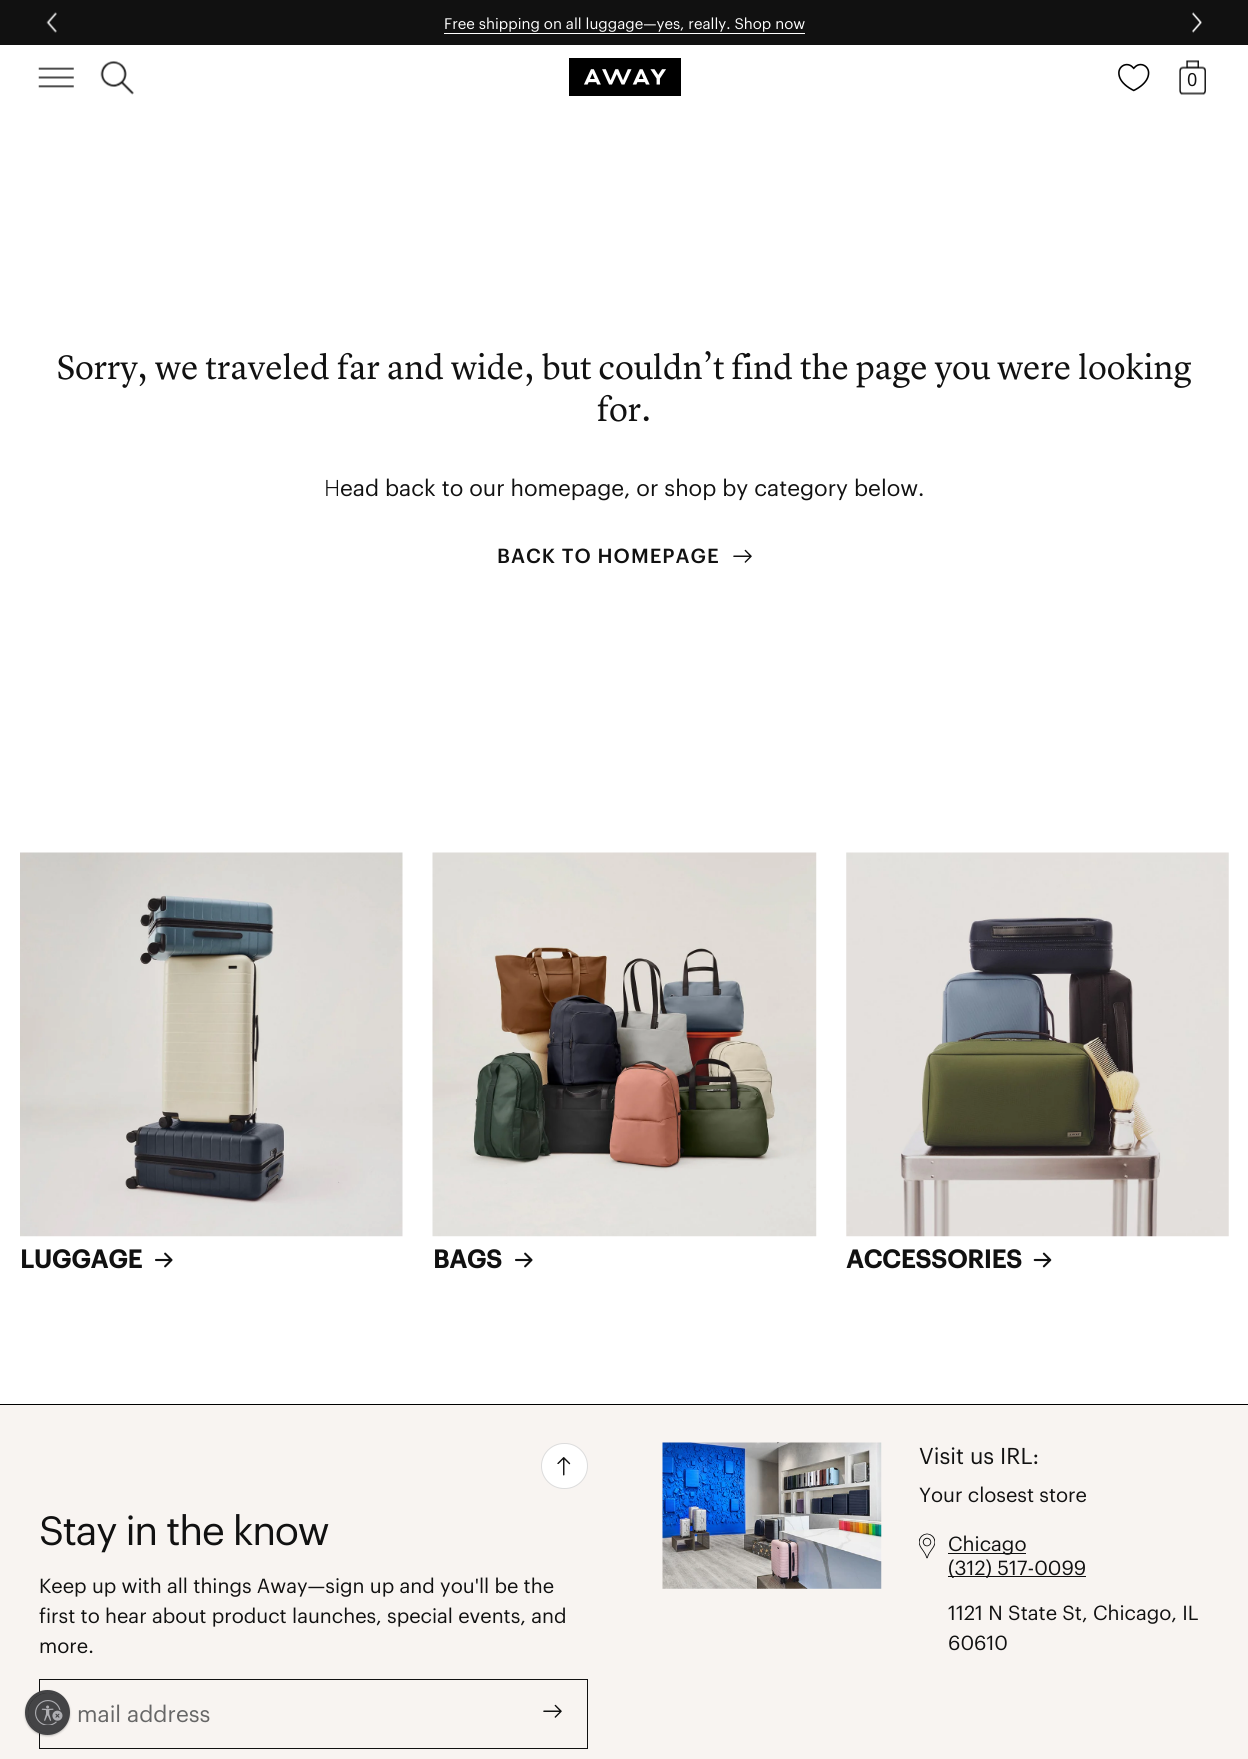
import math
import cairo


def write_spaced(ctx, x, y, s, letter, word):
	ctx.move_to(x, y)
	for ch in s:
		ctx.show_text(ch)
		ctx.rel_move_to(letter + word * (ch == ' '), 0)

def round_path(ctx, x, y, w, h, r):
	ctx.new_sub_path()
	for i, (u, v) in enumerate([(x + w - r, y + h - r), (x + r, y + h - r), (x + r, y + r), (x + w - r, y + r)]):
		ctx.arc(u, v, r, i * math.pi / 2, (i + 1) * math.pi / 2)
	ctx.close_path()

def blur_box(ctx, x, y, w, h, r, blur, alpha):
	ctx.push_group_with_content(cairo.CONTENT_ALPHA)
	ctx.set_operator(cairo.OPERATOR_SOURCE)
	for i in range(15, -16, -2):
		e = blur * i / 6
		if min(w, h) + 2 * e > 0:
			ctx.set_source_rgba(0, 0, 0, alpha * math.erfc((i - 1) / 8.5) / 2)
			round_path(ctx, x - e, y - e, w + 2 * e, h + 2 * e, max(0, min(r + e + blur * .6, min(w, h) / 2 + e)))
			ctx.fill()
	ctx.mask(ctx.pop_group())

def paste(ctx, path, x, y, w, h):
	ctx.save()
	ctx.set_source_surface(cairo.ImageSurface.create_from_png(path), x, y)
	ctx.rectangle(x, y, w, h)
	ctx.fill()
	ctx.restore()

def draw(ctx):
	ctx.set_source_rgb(1, 1, 1)
	ctx.paint()
	ctx.set_source_rgb(0.067, 0.067, 0.067)
	ctx.rectangle(0, 0, 1248, 45)
	ctx.fill()
	paste(ctx, 'media/1.png', 46, 12, 11, 21)
	ctx.select_font_face('Graphik')
	ctx.set_font_size(15)
	ctx.set_source_rgb(1, 1, 1)
	ctx.move_to(444, 29)
	ctx.show_text('Free shipping on all luggage—yes, really. Shop now')
	ctx.rectangle(444, 33, 361, 1)
	ctx.fill()
	paste(ctx, 'media/2.png', 1192, 12, 10, 21)
	paste(ctx, 'media/3.png', 38, 67, 36, 21)
	paste(ctx, 'media/4.png', 100, 61, 34, 34)
	paste(ctx, 'media/5.png', 569, 58, 112, 38)
	paste(ctx, 'media/6.png', 1118, 63, 32, 29)
	paste(ctx, 'media/7.png', 1179, 60, 27, 35)
	ctx.select_font_face('Noto Sans')
	ctx.set_font_size(18)
	ctx.set_source_rgb(0.067, 0.067, 0.067)
	ctx.move_to(1187, 86)
	ctx.show_text('0')
	ctx.select_font_face('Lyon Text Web')
	ctx.set_font_size(35)
	ctx.move_to(57, 379)
	ctx.show_text('Sorry, we traveled far and wide, but couldn’t find the page you were looking')
	ctx.move_to(597, 421)
	ctx.show_text('for.')
	ctx.select_font_face('Noto Sans Light')
	ctx.set_font_size(22.5)
	ctx.move_to(324, 496)
	ctx.show_text('H')
	ctx.select_font_face('Graphik')
	ctx.move_to(340, 496)
	ctx.show_text('ead back to our homepage, or shop by category below.')
	ctx.select_font_face('Graphik Medium')
	ctx.set_font_size(20)
	write_spaced(ctx, 497, 563, 'BACK TO HOMEPAGE', 1, 0)
	paste(ctx, 'media/8.png', 733, 549, 19, 14)
	paste(ctx, 'media/9.png', 20, 852, 383, 385)
	ctx.select_font_face('Graphik', cairo.FONT_SLANT_NORMAL, cairo.FONT_WEIGHT_BOLD)
	ctx.set_font_size(25)
	ctx.move_to(20, 1268)
	ctx.show_text('LUGGAGE')
	paste(ctx, 'media/10.png', 155, 1252, 18, 16)
	paste(ctx, 'media/11.png', 432, 852, 385, 385)
	ctx.move_to(433, 1268)
	ctx.show_text('BAGS')
	paste(ctx, 'media/10.png', 515, 1252, 18, 16)
	paste(ctx, 'media/12.png', 846, 852, 383, 385)
	ctx.move_to(846, 1268)
	ctx.show_text('ACCESSORIES')
	paste(ctx, 'media/13.png', 1033, 1252, 19, 16)
	ctx.set_source_rgb(0, 0, 0)
	ctx.rectangle(0, 1404, 1248, 1)
	ctx.fill()
	ctx.set_source_rgb(0.969, 0.957, 0.945)
	ctx.rectangle(0, 1405, 1248, 354)
	ctx.fill()
	ctx.set_source_rgb(1, 1, 1)
	round_path(ctx, 541, 1443, 47, 46, 23)
	ctx.fill()
	round_path(ctx, 541.5, 1443.5, 46, 45, 22.5)
	ctx.set_source_rgba(0, 0, 0, 0.14)
	ctx.set_line_width(1)
	ctx.stroke()
	paste(ctx, 'media/14.png', 557, 1457, 14, 19)
	ctx.select_font_face('Graphik')
	ctx.set_font_size(40)
	ctx.set_source_rgb(0.067, 0.067, 0.067)
	write_spaced(ctx, 39, 1545, 'Stay in the know', -1.25, 0)
	ctx.set_font_size(20)
	for x, y, s in [
		(39, 1593, 'Keep up with all things Away—sign up and you\'ll be the'),
		(39, 1623, 'first to hear about product launches, special events, and'),
		(39, 1653, 'more.'),
	]:
		ctx.move_to(x, y)
		ctx.show_text(s)
	ctx.rectangle(39.5, 1679.5, 548, 69)
	ctx.stroke()
	ctx.set_font_size(22.5)
	ctx.set_source_rgb(0.4, 0.4, 0.4)
	ctx.move_to(77, 1722)
	ctx.show_text('mail address')
	paste(ctx, 'media/15.png', 543, 1704, 19, 14)
	paste(ctx, 'media/16.png', 662, 1442, 220, 147)
	ctx.set_source_rgb(0.067, 0.067, 0.067)
	ctx.move_to(919, 1464)
	ctx.show_text('Visit us IRL:')
	ctx.set_font_size(20)
	ctx.move_to(919, 1502)
	ctx.show_text('Your closest store')
	paste(ctx, 'media/17.png', 919, 1533, 16, 26)
	ctx.rectangle(948, 1553, 78, 1)
	ctx.fill()
	ctx.move_to(948, 1551)
	ctx.show_text('Chicago')
	ctx.rectangle(948, 1576, 138, 1)
	ctx.fill()
	for x, y, s in [
		(948, 1575, '(312) 517-0099'),
		(948, 1620, '1121 N State St, Chicago, IL'),
		(948, 1650, '60610'),
	]:
		ctx.move_to(x, y)
		ctx.show_text(s)
	ctx.set_source_rgb(0, 0, 0)
	blur_box(ctx, 25, 1691, 45, 45, 22.5, 1, 0.24)
	ctx.set_source_rgb(0.141, 0.141, 0.149)
	ctx.arc(47.5, 1712.5, 21, 0, 2 * math.pi)
	ctx.fill_preserve()
	ctx.set_source_rgb(0.267, 0.267, 0.275)
	ctx.set_line_width(3)
	ctx.stroke()
	ctx.save()
	round_path(ctx, 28, 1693, 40, 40, 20)
	ctx.clip()
	ctx.set_source_rgb(0, 0, 0)
	blur_box(ctx, 28, 1694, 40, 40, 20, 1, 0.24)
	ctx.restore()
	ctx.arc(48, 1713, 20, 0, 2 * math.pi)
	ctx.fill()
	paste(ctx, 'media/18.png', 35, 1700, 28, 25)


surface = cairo.ImageSurface(cairo.FORMAT_RGB24, 1248, 1759)
ctx = cairo.Context(surface)
options = cairo.FontOptions()
options.set_hint_metrics(cairo.HINT_METRICS_OFF)
options.set_hint_style(cairo.HINT_STYLE_NONE)
ctx.set_font_options(options)
ctx.set_miter_limit(4)
draw(ctx)
surface.write_to_png('image.png')
